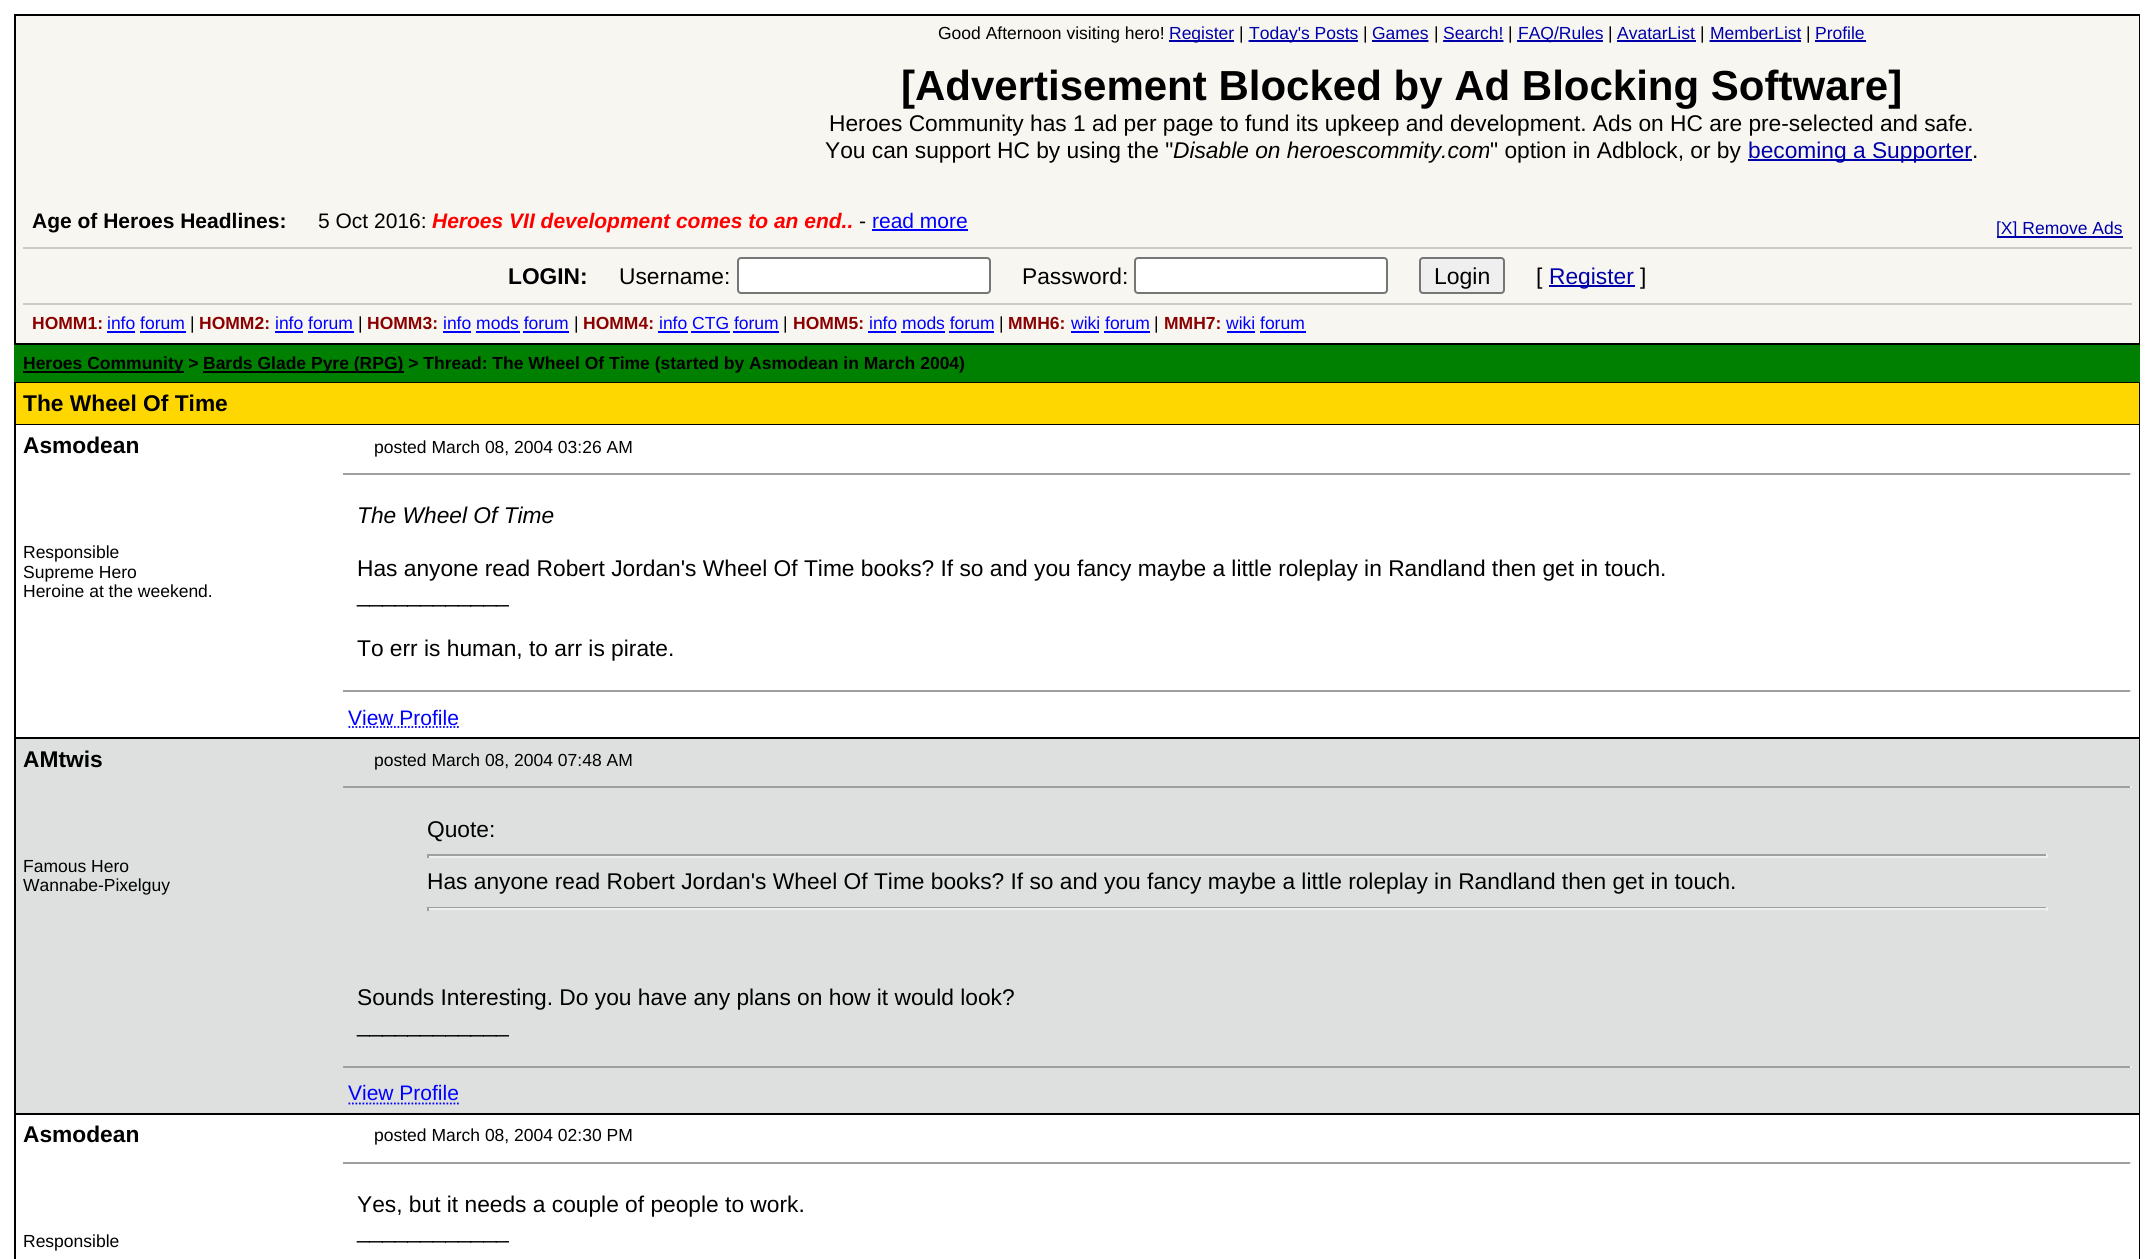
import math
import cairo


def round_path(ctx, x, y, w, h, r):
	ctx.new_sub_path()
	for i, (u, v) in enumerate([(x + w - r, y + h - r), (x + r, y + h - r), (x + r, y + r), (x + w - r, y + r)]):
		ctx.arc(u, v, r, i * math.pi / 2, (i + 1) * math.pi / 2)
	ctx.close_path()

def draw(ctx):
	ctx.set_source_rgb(1, 1, 1)
	ctx.paint()
	ctx.set_source_rgb(0, 0, 0)
	ctx.rectangle(14, 14, 2126, 331)
	ctx.fill()
	ctx.set_source_rgb(0.969, 0.961, 0.941)
	ctx.rectangle(16, 16, 2123, 327)
	ctx.fill()
	ctx.select_font_face('Liberation Sans')
	ctx.set_font_size(17.5)
	ctx.set_source_rgb(0, 0, 0)
	ctx.move_to(938, 39)
	ctx.show_text('Good Afternoon visiting hero!')
	ctx.set_source_rgb(0, 0, 0.667)
	ctx.rectangle(1169, 40, 65, 2)
	ctx.fill()
	ctx.move_to(1169, 39)
	ctx.show_text('Register')
	ctx.set_source_rgb(0, 0, 0)
	ctx.move_to(1239, 39)
	ctx.show_text('|')
	ctx.new_path()
	ctx.move_to(1248.5, 41)
	ctx.line_to(1358, 41)
	ctx.set_source_rgb(0, 0, 0.667)
	ctx.set_line_width(1.8)
	ctx.set_dash([1.75, 1.75])
	ctx.stroke()
	ctx.rectangle(1250, 40, 108, 2)
	ctx.fill()
	ctx.move_to(1249, 39)
	ctx.show_text('Today\'s Posts')
	ctx.set_source_rgb(0, 0, 0)
	ctx.move_to(1363, 39)
	ctx.show_text('|')
	ctx.set_source_rgb(0, 0, 0.667)
	ctx.move_to(1372, 39)
	ctx.show_text('Games')
	ctx.new_path()
	ctx.move_to(1372.5, 41)
	ctx.line_to(1429, 41)
	ctx.stroke()
	ctx.rectangle(1372, 40, 56, 2)
	ctx.fill()
	ctx.set_source_rgb(0, 0, 0)
	ctx.move_to(1434, 39)
	ctx.show_text('|')
	ctx.set_source_rgb(0, 0, 0.667)
	ctx.move_to(1443, 39)
	ctx.show_text('Search!')
	ctx.new_path()
	ctx.move_to(1443, 41)
	ctx.line_to(1503.5, 41)
	ctx.stroke()
	ctx.rectangle(1444, 40, 59, 2)
	ctx.fill()
	ctx.set_source_rgb(0, 0, 0)
	ctx.move_to(1508, 39)
	ctx.show_text('|')
	ctx.set_source_rgb(0, 0, 0.667)
	ctx.rectangle(1517, 40, 86, 2)
	ctx.fill()
	ctx.move_to(1518, 39)
	ctx.show_text('FAQ/Rules')
	ctx.set_source_rgb(0, 0, 0)
	ctx.move_to(1608, 39)
	ctx.show_text('|')
	ctx.set_source_rgb(0, 0, 0.667)
	ctx.move_to(1617, 39)
	ctx.show_text('AvatarList')
	ctx.rectangle(1617, 40, 79, 2)
	ctx.fill()
	ctx.set_source_rgb(0, 0, 0)
	ctx.move_to(1700, 39)
	ctx.show_text('|')
	ctx.set_source_rgb(0, 0, 0.667)
	ctx.move_to(1710, 39)
	ctx.show_text('MemberList')
	ctx.new_path()
	ctx.move_to(1709.5, 41)
	ctx.line_to(1801, 41)
	ctx.stroke()
	ctx.rectangle(1710, 40, 91, 2)
	ctx.fill()
	ctx.set_source_rgb(0, 0, 0)
	ctx.move_to(1806, 39)
	ctx.show_text('|')
	ctx.set_source_rgb(0, 0, 0.667)
	ctx.move_to(1815, 39)
	ctx.show_text('Profile')
	ctx.rectangle(1815, 40, 51, 2)
	ctx.fill()
	ctx.select_font_face('Liberation Sans', cairo.FONT_SLANT_NORMAL, cairo.FONT_WEIGHT_BOLD)
	ctx.set_font_size(42)
	ctx.set_source_rgb(0, 0, 0)
	ctx.move_to(901, 100)
	ctx.show_text('[Advertisement Blocked by Ad Blocking Software]')
	ctx.select_font_face('Liberation Sans')
	ctx.set_font_size(22.75)
	ctx.move_to(829, 131)
	ctx.show_text('Heroes Community has 1 ad per page to fund its upkeep and development. Ads on HC are pre-selected and safe.')
	ctx.move_to(825, 158)
	ctx.show_text('You can support HC by using the "')
	ctx.select_font_face('Liberation Sans', cairo.FONT_SLANT_ITALIC)
	ctx.move_to(1173, 158)
	ctx.show_text('Disable on heroescommity.com')
	ctx.select_font_face('Liberation Sans')
	ctx.move_to(1490, 158)
	ctx.show_text('" option in Adblock, or by')
	ctx.set_source_rgb(0, 0, 0.667)
	ctx.rectangle(1748, 159, 224, 2)
	ctx.fill()
	ctx.move_to(1748, 158)
	ctx.show_text('becoming a Supporter')
	ctx.set_source_rgb(0, 0, 0)
	ctx.move_to(1972, 158)
	ctx.show_text('.')
	ctx.select_font_face('Liberation Sans', cairo.FONT_SLANT_NORMAL, cairo.FONT_WEIGHT_BOLD)
	ctx.set_font_size(21)
	ctx.move_to(32, 228)
	ctx.show_text('Age of Heroes Headlines:')
	ctx.select_font_face('Liberation Sans')
	ctx.move_to(318, 228)
	ctx.show_text('5 Oct 2016:')
	ctx.select_font_face('Liberation Sans', cairo.FONT_SLANT_ITALIC, cairo.FONT_WEIGHT_BOLD)
	ctx.set_source_rgb(1, 0, 0)
	ctx.move_to(432, 228)
	ctx.show_text('Heroes VII development comes to an end..')
	ctx.select_font_face('Liberation Sans')
	ctx.set_source_rgb(0, 0, 0)
	ctx.move_to(859, 228)
	ctx.show_text('-')
	ctx.set_source_rgb(0, 0, 1)
	ctx.move_to(872, 228)
	ctx.show_text('read more')
	ctx.rectangle(872, 229, 96, 2)
	ctx.fill()
	ctx.set_source_rgb(0, 0, 0.667)
	ctx.rectangle(1997, 236, 126, 2)
	ctx.fill()
	ctx.set_font_size(17.5)
	ctx.move_to(1996, 234)
	ctx.show_text('[X] Remove Ads')
	ctx.set_source_rgb(0.8, 0.8, 0.8)
	ctx.rectangle(23, 247, 2109, 2)
	ctx.fill()
	ctx.select_font_face('Liberation Sans', cairo.FONT_SLANT_NORMAL, cairo.FONT_WEIGHT_BOLD)
	ctx.set_font_size(22.75)
	ctx.set_source_rgb(0, 0, 0)
	ctx.move_to(508, 284)
	ctx.show_text('LOGIN:')
	ctx.select_font_face('Liberation Sans')
	ctx.move_to(619, 284)
	ctx.show_text('Username:')
	ctx.set_source_rgb(1, 1, 1)
	round_path(ctx, 738, 258, 252, 35, 3)
	ctx.fill_preserve()
	ctx.set_source_rgb(0.463, 0.463, 0.463)
	ctx.set_line_width(2)
	ctx.set_dash([])
	ctx.stroke()
	ctx.set_source_rgb(0, 0, 0)
	ctx.move_to(1022, 284)
	ctx.show_text('Password:')
	ctx.set_source_rgb(1, 1, 1)
	round_path(ctx, 1135, 258, 252, 35, 3)
	ctx.fill_preserve()
	ctx.set_source_rgb(0.463, 0.463, 0.463)
	ctx.stroke()
	ctx.set_source_rgb(0.937, 0.937, 0.937)
	round_path(ctx, 1420, 258, 84, 35, 3)
	ctx.fill_preserve()
	ctx.set_source_rgb(0.463, 0.463, 0.463)
	ctx.stroke()
	ctx.set_font_size(23)
	ctx.set_source_rgb(0, 0, 0)
	ctx.move_to(1434, 284)
	ctx.show_text('Login')
	ctx.set_font_size(22.75)
	ctx.move_to(1536, 284)
	ctx.show_text('[')
	ctx.set_source_rgb(0, 0, 0.667)
	ctx.rectangle(1549, 285, 86, 2)
	ctx.fill()
	ctx.move_to(1549, 284)
	ctx.show_text('Register')
	ctx.set_source_rgb(0, 0, 0)
	ctx.move_to(1640, 284)
	ctx.show_text(']')
	ctx.set_source_rgb(0.8, 0.8, 0.8)
	ctx.rectangle(23, 303, 2109, 2)
	ctx.fill()
	ctx.select_font_face('Liberation Sans', cairo.FONT_SLANT_NORMAL, cairo.FONT_WEIGHT_BOLD)
	ctx.set_font_size(17.5)
	ctx.set_source_rgb(0.545, 0, 0)
	ctx.move_to(32, 329)
	ctx.show_text('HOMM1:')
	ctx.select_font_face('Liberation Sans')
	ctx.set_source_rgb(0, 0, 1)
	ctx.move_to(107, 329)
	ctx.show_text('info forum')
	ctx.rectangle(107, 331, 28, 2)
	ctx.fill()
	ctx.rectangle(140, 331, 46, 2)
	ctx.fill()
	ctx.set_source_rgb(0, 0, 0)
	ctx.move_to(190, 329)
	ctx.show_text('|')
	ctx.select_font_face('Liberation Sans', cairo.FONT_SLANT_NORMAL, cairo.FONT_WEIGHT_BOLD)
	ctx.set_source_rgb(0.545, 0, 0)
	ctx.move_to(199, 329)
	ctx.show_text('HOMM2:')
	ctx.select_font_face('Liberation Sans')
	ctx.set_source_rgb(0, 0, 1)
	ctx.move_to(275, 329)
	ctx.show_text('info forum')
	ctx.rectangle(275, 331, 28, 2)
	ctx.fill()
	ctx.rectangle(308, 331, 46, 2)
	ctx.fill()
	ctx.set_source_rgb(0, 0, 0)
	ctx.move_to(358, 329)
	ctx.show_text('|')
	ctx.select_font_face('Liberation Sans', cairo.FONT_SLANT_NORMAL, cairo.FONT_WEIGHT_BOLD)
	ctx.set_source_rgb(0.545, 0, 0)
	ctx.move_to(367, 329)
	ctx.show_text('HOMM3:')
	ctx.select_font_face('Liberation Sans')
	ctx.set_source_rgb(0, 0, 1)
	ctx.move_to(443, 329)
	ctx.show_text('info mods forum')
	ctx.rectangle(443, 331, 28, 2)
	ctx.rectangle(476, 331, 44, 2)
	ctx.rectangle(523, 331, 46, 2)
	ctx.fill()
	ctx.set_source_rgb(0, 0, 0)
	ctx.move_to(574, 329)
	ctx.show_text('|')
	ctx.select_font_face('Liberation Sans', cairo.FONT_SLANT_NORMAL, cairo.FONT_WEIGHT_BOLD)
	ctx.set_source_rgb(0.545, 0, 0)
	ctx.move_to(583, 329)
	ctx.show_text('HOMM4:')
	ctx.select_font_face('Liberation Sans')
	ctx.set_source_rgb(0, 0, 1)
	ctx.move_to(659, 329)
	ctx.show_text('info CTG forum')
	ctx.rectangle(658, 331, 30, 2)
	ctx.rectangle(691, 331, 39, 2)
	ctx.rectangle(733, 331, 46, 2)
	ctx.fill()
	ctx.set_source_rgb(0, 0, 0)
	ctx.move_to(783, 329)
	ctx.show_text('|')
	ctx.select_font_face('Liberation Sans', cairo.FONT_SLANT_NORMAL, cairo.FONT_WEIGHT_BOLD)
	ctx.set_source_rgb(0.545, 0, 0)
	ctx.move_to(793, 329)
	ctx.show_text('HOMM5:')
	ctx.select_font_face('Liberation Sans')
	ctx.set_source_rgb(0, 0, 1)
	ctx.move_to(869, 329)
	ctx.show_text('info mods forum')
	ctx.rectangle(868, 331, 28, 2)
	ctx.rectangle(901, 331, 44, 2)
	ctx.rectangle(949, 331, 45, 2)
	ctx.fill()
	ctx.set_source_rgb(0, 0, 0)
	ctx.move_to(999, 329)
	ctx.show_text('|')
	ctx.select_font_face('Liberation Sans', cairo.FONT_SLANT_NORMAL, cairo.FONT_WEIGHT_BOLD)
	ctx.set_source_rgb(0.545, 0, 0)
	ctx.move_to(1008, 329)
	ctx.show_text('MMH6:')
	ctx.select_font_face('Liberation Sans')
	ctx.set_source_rgb(0, 0, 1)
	ctx.move_to(1071, 329)
	ctx.show_text('wiki forum')
	ctx.rectangle(1071, 331, 28, 2)
	ctx.fill()
	ctx.rectangle(1104, 331, 46, 2)
	ctx.fill()
	ctx.set_source_rgb(0, 0, 0)
	ctx.move_to(1154, 329)
	ctx.show_text('|')
	ctx.select_font_face('Liberation Sans', cairo.FONT_SLANT_NORMAL, cairo.FONT_WEIGHT_BOLD)
	ctx.set_source_rgb(0.545, 0, 0)
	ctx.move_to(1164, 329)
	ctx.show_text('MMH7:')
	ctx.select_font_face('Liberation Sans')
	ctx.set_source_rgb(0, 0, 1)
	ctx.move_to(1226, 329)
	ctx.show_text('wiki forum')
	ctx.rectangle(1227, 331, 28, 2)
	ctx.rectangle(1260, 331, 46, 2)
	ctx.fill()
	ctx.set_source_rgb(0, 0.502, 0)
	ctx.rectangle(14, 345, 2126, 37)
	ctx.fill()
	ctx.set_source_rgb(0, 0, 0)
	ctx.rectangle(23, 371, 161, 2)
	ctx.fill()
	ctx.select_font_face('Liberation Sans', cairo.FONT_SLANT_NORMAL, cairo.FONT_WEIGHT_BOLD)
	ctx.move_to(23, 369)
	ctx.show_text('Heroes Community >')
	ctx.rectangle(203, 371, 201, 2)
	ctx.fill()
	ctx.move_to(203, 369)
	ctx.show_text('Bards Glade Pyre (RPG) > Thread: The Wheel Of Time (started by Asmodean in March 2004)')
	ctx.rectangle(14, 382, 2126, 877)
	ctx.fill()
	ctx.set_source_rgb(1, 0.843, 0)
	ctx.rectangle(16, 383, 2123, 41)
	ctx.fill()
	ctx.set_font_size(22.75)
	ctx.set_source_rgb(0, 0, 0)
	ctx.move_to(23, 411)
	ctx.show_text('The Wheel Of Time')
	ctx.set_source_rgb(1, 1, 1)
	ctx.rectangle(16, 425, 2123, 312)
	ctx.fill()
	ctx.set_source_rgb(0, 0, 0)
	ctx.move_to(23, 453)
	ctx.show_text('Asmodean')
	ctx.select_font_face('Liberation Sans')
	ctx.set_font_size(17.5)
	for x, y, s in [
		(23, 558, 'Responsible'),
		(23, 578, 'Supreme Hero'),
		(23, 597, 'Heroine at the weekend.'),
		(374, 453, 'posted March 08, 2004 03:26 AM'),
	]:
		ctx.move_to(x, y)
		ctx.show_text(s)
	ctx.set_source_rgb(0.624, 0.624, 0.624)
	ctx.rectangle(343, 473, 1789, 2)
	ctx.fill()
	ctx.set_source_rgb(0.933, 0.933, 0.933)
	ctx.rectangle(2130, 473, 2, 2)
	ctx.fill()
	ctx.select_font_face('Liberation Sans', cairo.FONT_SLANT_ITALIC)
	ctx.set_font_size(22.75)
	ctx.set_source_rgb(0, 0, 0)
	ctx.move_to(357, 523)
	ctx.show_text('The Wheel Of Time')
	ctx.select_font_face('Liberation Sans')
	for x, y, s in [
		(357, 576, 'Has anyone read Robert Jordan\'s Wheel Of Time books? If so and you fancy maybe a little roleplay in Randland then get in touch.'),
		(357, 602, '____________'),
		(357, 656, 'To err is human, to arr is pirate.'),
	]:
		ctx.move_to(x, y)
		ctx.show_text(s)
	ctx.set_source_rgb(0.624, 0.624, 0.624)
	ctx.rectangle(343, 690, 1789, 2)
	ctx.fill()
	ctx.set_source_rgb(0.933, 0.933, 0.933)
	ctx.rectangle(2130, 690, 2, 2)
	ctx.fill()
	ctx.set_font_size(21)
	ctx.set_source_rgb(0, 0, 1)
	ctx.move_to(348, 725)
	ctx.show_text('View Profile')
	ctx.new_path()
	ctx.move_to(348.5, 727)
	ctx.line_to(459.5, 727)
	ctx.set_line_width(1.8)
	ctx.set_dash([1.75, 1.75])
	ctx.stroke()
	ctx.set_source_rgb(0.871, 0.875, 0.875)
	ctx.rectangle(16, 739, 2123, 374)
	ctx.fill()
	ctx.select_font_face('Liberation Sans', cairo.FONT_SLANT_NORMAL, cairo.FONT_WEIGHT_BOLD)
	ctx.set_font_size(22.75)
	ctx.set_source_rgb(0, 0, 0)
	ctx.move_to(23, 767)
	ctx.show_text('AMtwis')
	ctx.select_font_face('Liberation Sans')
	ctx.set_font_size(17.5)
	for x, y, s in [
		(23, 872, 'Famous Hero'),
		(23, 891, 'Wannabe-Pixelguy'),
		(374, 766, 'posted March 08, 2004 07:48 AM'),
	]:
		ctx.move_to(x, y)
		ctx.show_text(s)
	ctx.set_source_rgb(0.624, 0.624, 0.624)
	ctx.rectangle(343, 786, 1789, 2)
	ctx.fill()
	ctx.set_source_rgb(0.933, 0.933, 0.933)
	ctx.rectangle(2130, 786, 2, 2)
	ctx.fill()
	ctx.set_font_size(22.75)
	ctx.set_source_rgb(0, 0, 0)
	ctx.move_to(427, 837)
	ctx.show_text('Quote:')
	ctx.set_source_rgb(0.624, 0.624, 0.624)
	ctx.rectangle(427, 854, 1621, 2)
	ctx.fill()
	ctx.set_source_rgb(0.933, 0.933, 0.933)
	ctx.rectangle(2046, 854, 2, 4)
	ctx.rectangle(427, 856, 1621, 2)
	ctx.fill()
	ctx.set_source_rgb(0.624, 0.624, 0.624)
	ctx.rectangle(427, 854, 2, 4)
	ctx.fill()
	ctx.set_source_rgb(0, 0, 0)
	ctx.move_to(427, 889)
	ctx.show_text('Has anyone read Robert Jordan\'s Wheel Of Time books? If so and you fancy maybe a little roleplay in Randland then get in touch.')
	ctx.set_source_rgb(0.624, 0.624, 0.624)
	ctx.rectangle(427, 907, 1621, 1)
	ctx.fill()
	ctx.set_source_rgb(0.933, 0.933, 0.933)
	ctx.rectangle(2046, 907, 2, 4)
	ctx.rectangle(427, 908, 1621, 2)
	ctx.fill()
	ctx.set_source_rgb(0.624, 0.624, 0.624)
	ctx.rectangle(427, 907, 2, 4)
	ctx.fill()
	ctx.set_source_rgb(0, 0, 0)
	ctx.move_to(357, 1005)
	ctx.show_text('Sounds Interesting. Do you have any plans on how it would look?')
	ctx.move_to(357, 1032)
	ctx.show_text('____________')
	ctx.set_source_rgb(0.624, 0.624, 0.624)
	ctx.rectangle(343, 1066, 1789, 2)
	ctx.fill()
	ctx.set_source_rgb(0.933, 0.933, 0.933)
	ctx.rectangle(2130, 1066, 2, 2)
	ctx.fill()
	ctx.set_font_size(21)
	ctx.set_source_rgb(0, 0, 1)
	ctx.move_to(348, 1100)
	ctx.show_text('View Profile')
	ctx.new_path()
	ctx.move_to(348.5, 1103.5)
	ctx.line_to(459.5, 1103.5)
	ctx.stroke()
	ctx.set_source_rgb(1, 1, 1)
	ctx.rectangle(16, 1115, 2123, 144)
	ctx.fill()
	ctx.select_font_face('Liberation Sans', cairo.FONT_SLANT_NORMAL, cairo.FONT_WEIGHT_BOLD)
	ctx.set_font_size(22.75)
	ctx.set_source_rgb(0, 0, 0)
	ctx.move_to(23, 1142)
	ctx.show_text('Asmodean')
	ctx.select_font_face('Liberation Sans')
	ctx.set_font_size(17.5)
	ctx.move_to(23, 1247)
	ctx.show_text('Responsible')
	ctx.move_to(374, 1141)
	ctx.show_text('posted March 08, 2004 02:30 PM')
	ctx.set_source_rgb(0.624, 0.624, 0.624)
	ctx.rectangle(343, 1162, 1789, 2)
	ctx.fill()
	ctx.set_source_rgb(0.933, 0.933, 0.933)
	ctx.rectangle(2130, 1162, 2, 2)
	ctx.fill()
	ctx.set_font_size(22.75)
	ctx.set_source_rgb(0, 0, 0)
	ctx.move_to(357, 1212)
	ctx.show_text('Yes, but it needs a couple of people to work.')
	ctx.move_to(357, 1238)
	ctx.show_text('____________')


surface = cairo.ImageSurface(cairo.FORMAT_RGB24, 2153, 1259)
ctx = cairo.Context(surface)
options = cairo.FontOptions()
options.set_hint_metrics(cairo.HINT_METRICS_OFF)
options.set_hint_style(cairo.HINT_STYLE_NONE)
ctx.set_font_options(options)
ctx.set_miter_limit(4)
draw(ctx)
surface.write_to_png('image.png')
